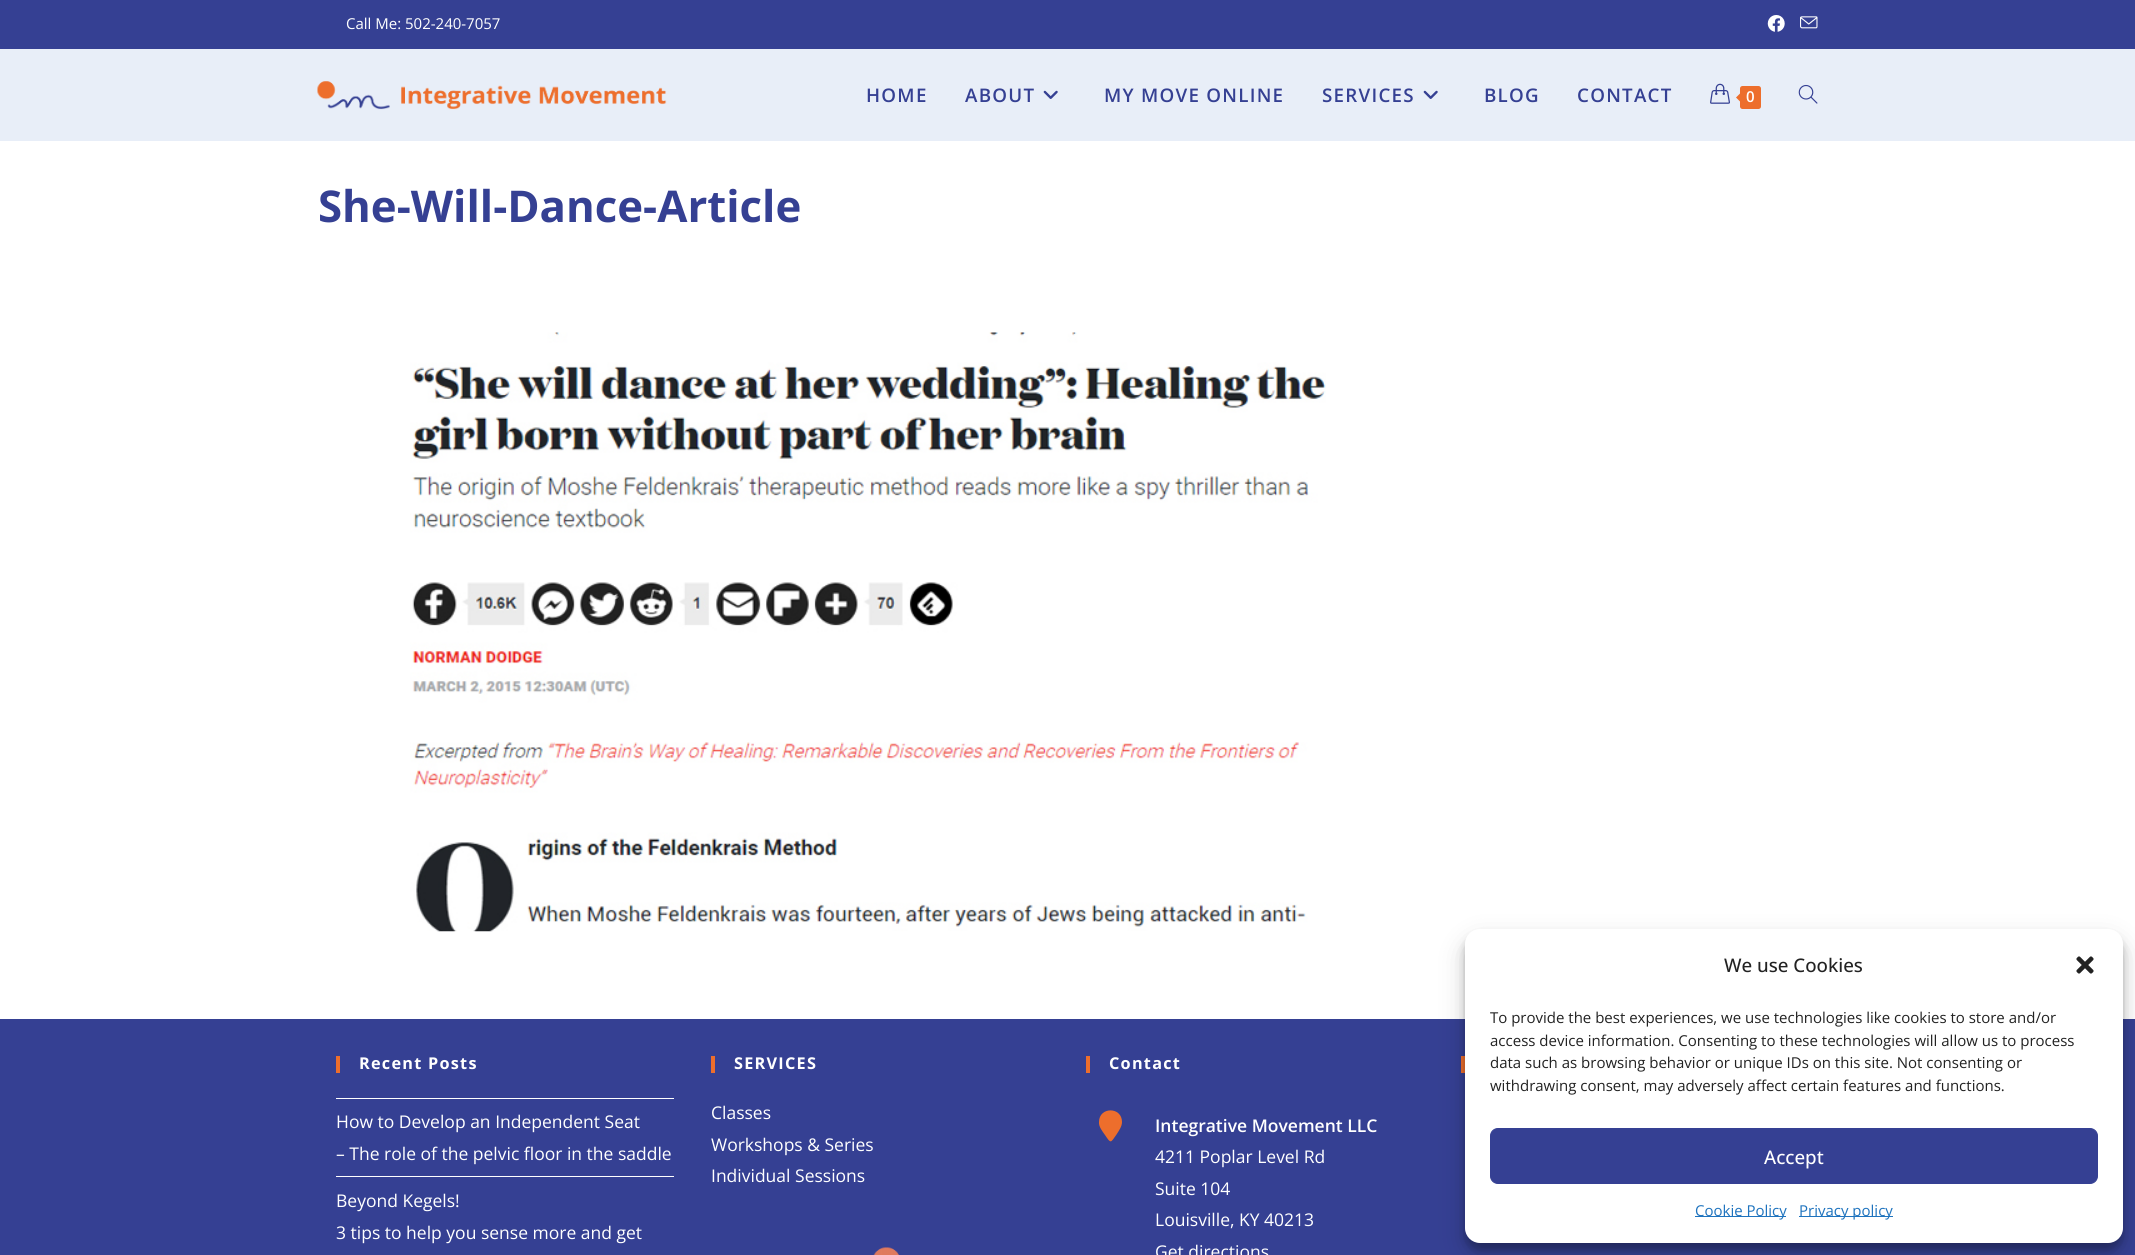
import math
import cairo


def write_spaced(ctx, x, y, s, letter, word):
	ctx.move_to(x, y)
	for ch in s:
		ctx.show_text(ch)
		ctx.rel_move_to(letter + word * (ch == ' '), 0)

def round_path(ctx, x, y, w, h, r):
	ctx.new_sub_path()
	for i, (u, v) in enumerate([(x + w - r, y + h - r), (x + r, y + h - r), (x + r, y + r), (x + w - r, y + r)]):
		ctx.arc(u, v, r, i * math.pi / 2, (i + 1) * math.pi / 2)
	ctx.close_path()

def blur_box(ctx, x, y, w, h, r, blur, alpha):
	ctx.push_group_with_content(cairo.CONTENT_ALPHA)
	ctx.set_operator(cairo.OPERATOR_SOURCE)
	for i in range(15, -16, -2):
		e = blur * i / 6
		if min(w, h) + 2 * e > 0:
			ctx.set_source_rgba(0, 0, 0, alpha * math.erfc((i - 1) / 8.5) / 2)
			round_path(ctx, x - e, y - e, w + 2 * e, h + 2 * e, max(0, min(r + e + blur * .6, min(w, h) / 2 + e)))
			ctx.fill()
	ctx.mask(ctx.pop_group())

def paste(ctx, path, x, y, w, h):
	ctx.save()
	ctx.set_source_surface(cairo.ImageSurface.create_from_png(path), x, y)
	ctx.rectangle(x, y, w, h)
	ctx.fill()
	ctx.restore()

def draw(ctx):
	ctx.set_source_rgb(1, 1, 1)
	ctx.paint()
	ctx.set_source_rgb(0.208, 0.251, 0.576)
	ctx.rectangle(0, 0, 2135, 49)
	ctx.fill()
	ctx.select_font_face('Open Sans')
	ctx.set_font_size(15)
	ctx.set_source_rgb(1, 1, 1)
	ctx.move_to(346, 29)
	ctx.show_text('Call Me: 502-240-7057')
	paste(ctx, 'media/1.png', 1767, 15, 18, 17)
	paste(ctx, 'media/2.png', 1800, 16, 18, 13)
	ctx.set_source_rgb(0.91, 0.933, 0.969)
	ctx.rectangle(0, 49, 2135, 92)
	ctx.fill()
	paste(ctx, 'media/3.png', 317, 81, 350, 29)
	ctx.select_font_face('Open Sans SemiBold')
	ctx.set_font_size(18.75)
	ctx.set_source_rgb(0.208, 0.251, 0.576)
	write_spaced(ctx, 866, 102, 'HOME', 1.25, 0)
	write_spaced(ctx, 965, 102, 'ABOUT', 1.25, 0)
	paste(ctx, 'media/4.png', 1043, 90, 15, 9)
	write_spaced(ctx, 1104, 102, 'MY MOVE ONLINE', 1.25, 0)
	write_spaced(ctx, 1322, 102, 'SERVICES', 1.25, 0)
	paste(ctx, 'media/4.png', 1423, 90, 15, 9)
	write_spaced(ctx, 1484, 102, 'BLOG', 1.25, 0)
	write_spaced(ctx, 1577, 102, 'CONTACT', 1.25, 0)
	paste(ctx, 'media/5.png', 1710, 83, 20, 21)
	ctx.set_source_rgb(0.929, 0.431, 0.173)
	round_path(ctx, 1740, 86, 21, 23, 2.5)
	ctx.fill()
	ctx.new_path()
	ctx.move_to(1742.5, 91)
	ctx.line_to(1742.5, 104)
	ctx.line_to(1736, 97.5)
	ctx.close_path()
	ctx.fill()
	ctx.set_font_size(15)
	ctx.set_source_rgb(1, 1, 1)
	ctx.move_to(1746, 102)
	ctx.show_text('0')
	paste(ctx, 'media/6.png', 1798, 84, 20, 20)
	ctx.select_font_face('Open Sans', cairo.FONT_SLANT_NORMAL, cairo.FONT_WEIGHT_BOLD)
	ctx.set_font_size(43.75)
	ctx.set_source_rgb(0.208, 0.251, 0.576)
	ctx.move_to(318, 222)
	ctx.show_text('She-Will-Dance-Article')
	paste(ctx, 'media/7.png', 410, 332, 916, 600)
	ctx.rectangle(0, 1019, 2135, 236)
	ctx.fill()
	ctx.set_source_rgb(0.929, 0.431, 0.173)
	ctx.rectangle(336, 1056, 4, 17)
	ctx.fill()
	ctx.set_font_size(16.25)
	ctx.set_source_rgb(1, 1, 1)
	write_spaced(ctx, 359, 1069, 'Recent Posts', 1.25, 0)
	ctx.rectangle(336, 1098, 338, 1)
	ctx.fill()
	ctx.rectangle(336, 1176, 338, 1)
	ctx.fill()
	ctx.select_font_face('Open Sans')
	ctx.set_font_size(17.5)
	for x, y, s in [
		(336, 1128, 'How to Develop an Independent Seat'),
		(336, 1160, '– The role of the pelvic floor in the saddle'),
		(336, 1207, 'Beyond Kegels!'),
		(336, 1239, '3 tips to help you sense more and get'),
	]:
		ctx.move_to(x, y)
		ctx.show_text(s)
	ctx.set_source_rgb(0.929, 0.431, 0.173)
	ctx.rectangle(711, 1056, 4, 17)
	ctx.fill()
	ctx.select_font_face('Open Sans', cairo.FONT_SLANT_NORMAL, cairo.FONT_WEIGHT_BOLD)
	ctx.set_font_size(16.25)
	ctx.set_source_rgb(1, 1, 1)
	write_spaced(ctx, 734, 1069, 'SERVICES', 1.25, 0)
	ctx.select_font_face('Open Sans')
	ctx.set_font_size(17.5)
	for x, y, s in [
		(711, 1119, 'Classes'),
		(711, 1151, 'Workshops & Series'),
		(711, 1182, 'Individual Sessions'),
	]:
		ctx.move_to(x, y)
		ctx.show_text(s)
	paste(ctx, 'media/8.png', 873, 1247, 26, 8)
	ctx.set_source_rgb(0.929, 0.431, 0.173)
	ctx.rectangle(1086, 1056, 4, 17)
	ctx.fill()
	ctx.select_font_face('Open Sans', cairo.FONT_SLANT_NORMAL, cairo.FONT_WEIGHT_BOLD)
	ctx.set_font_size(16.25)
	ctx.set_source_rgb(1, 1, 1)
	write_spaced(ctx, 1109, 1069, 'Contact', 1.25, 0)
	ctx.set_source_rgb(0.929, 0.431, 0.173)
	ctx.new_path()
	ctx.move_to(1122, 1122)
	ctx.curve_to(1122, 1126.5, 1119, 1130.5, 1116.5, 1134.5)
	ctx.curve_to(1110.5, 1143, 1111, 1144, 1105, 1135)
	ctx.curve_to(1102.5, 1131.5, 1098.5, 1126.5, 1099, 1122)
	ctx.curve_to(1099, 1106.5, 1122, 1106.5, 1122, 1122)
	ctx.close_path()
	ctx.fill()
	ctx.select_font_face('Open Sans SemiBold')
	ctx.set_font_size(17.5)
	ctx.set_source_rgb(1, 1, 1)
	ctx.move_to(1155, 1132)
	ctx.show_text('Integrative Movement LLC')
	ctx.select_font_face('Open Sans')
	for x, y, s in [
		(1155, 1163, '4211 Poplar Level Rd'),
		(1155, 1195, 'Suite 104'),
		(1155, 1226, 'Louisville, KY 40213'),
		(1155, 1258, 'Get directions'),
	]:
		ctx.move_to(x, y)
		ctx.show_text(s)
	ctx.set_source_rgb(0.929, 0.431, 0.173)
	ctx.rectangle(1461, 1056, 4, 17)
	ctx.fill()
	ctx.set_source_rgb(0, 0, 0)
	blur_box(ctx, 1465, 936, 658, 314, 15, 4, 0.23)
	blur_box(ctx, 1465, 941, 658, 314, 15, 12.5, 0.19)
	ctx.set_source_rgb(1, 1, 1)
	round_path(ctx, 1465, 929, 658, 314, 15)
	ctx.fill()
	ctx.select_font_face('Open Sans Medium')
	ctx.set_font_size(18.75)
	ctx.set_source_rgb(0.133, 0.133, 0.133)
	ctx.move_to(1724, 972)
	ctx.show_text('We use Cookies')
	paste(ctx, 'media/9.png', 2076, 956, 18, 18)
	ctx.select_font_face('Open Sans')
	ctx.set_font_size(15)
	for x, y, s in [
		(1490, 1023, 'To provide the best experiences, we use technologies like cookies to store and/or'),
		(1490, 1046, 'access device information. Consenting to these technologies will allow us to process'),
		(1490, 1068, 'data such as browsing behavior or unique IDs on this site. Not consenting or'),
		(1490, 1091, 'withdrawing consent, may adversely affect certain features and functions.'),
	]:
		ctx.move_to(x, y)
		ctx.show_text(s)
	ctx.set_source_rgb(0.208, 0.251, 0.576)
	round_path(ctx, 1490.5, 1128.5, 607, 55, 7.5)
	ctx.fill_preserve()
	ctx.set_line_width(1)
	ctx.stroke()
	ctx.select_font_face('Open Sans Medium')
	ctx.set_font_size(18.75)
	ctx.set_source_rgb(1, 1, 1)
	ctx.move_to(1764, 1164)
	ctx.show_text('Accept')
	ctx.set_source_rgb(0.118, 0.451, 0.745)
	ctx.rectangle(1695, 1216, 91, 1)
	ctx.fill()
	ctx.select_font_face('Open Sans')
	ctx.set_font_size(15)
	ctx.move_to(1695, 1216)
	ctx.show_text('Cookie Policy')
	ctx.rectangle(1799, 1216, 94, 1)
	ctx.fill()
	ctx.move_to(1799, 1216)
	ctx.show_text('Privacy policy')


surface = cairo.ImageSurface(cairo.FORMAT_RGB24, 2135, 1255)
ctx = cairo.Context(surface)
options = cairo.FontOptions()
options.set_hint_metrics(cairo.HINT_METRICS_OFF)
options.set_hint_style(cairo.HINT_STYLE_NONE)
ctx.set_font_options(options)
ctx.set_miter_limit(4)
draw(ctx)
surface.write_to_png('image.png')
